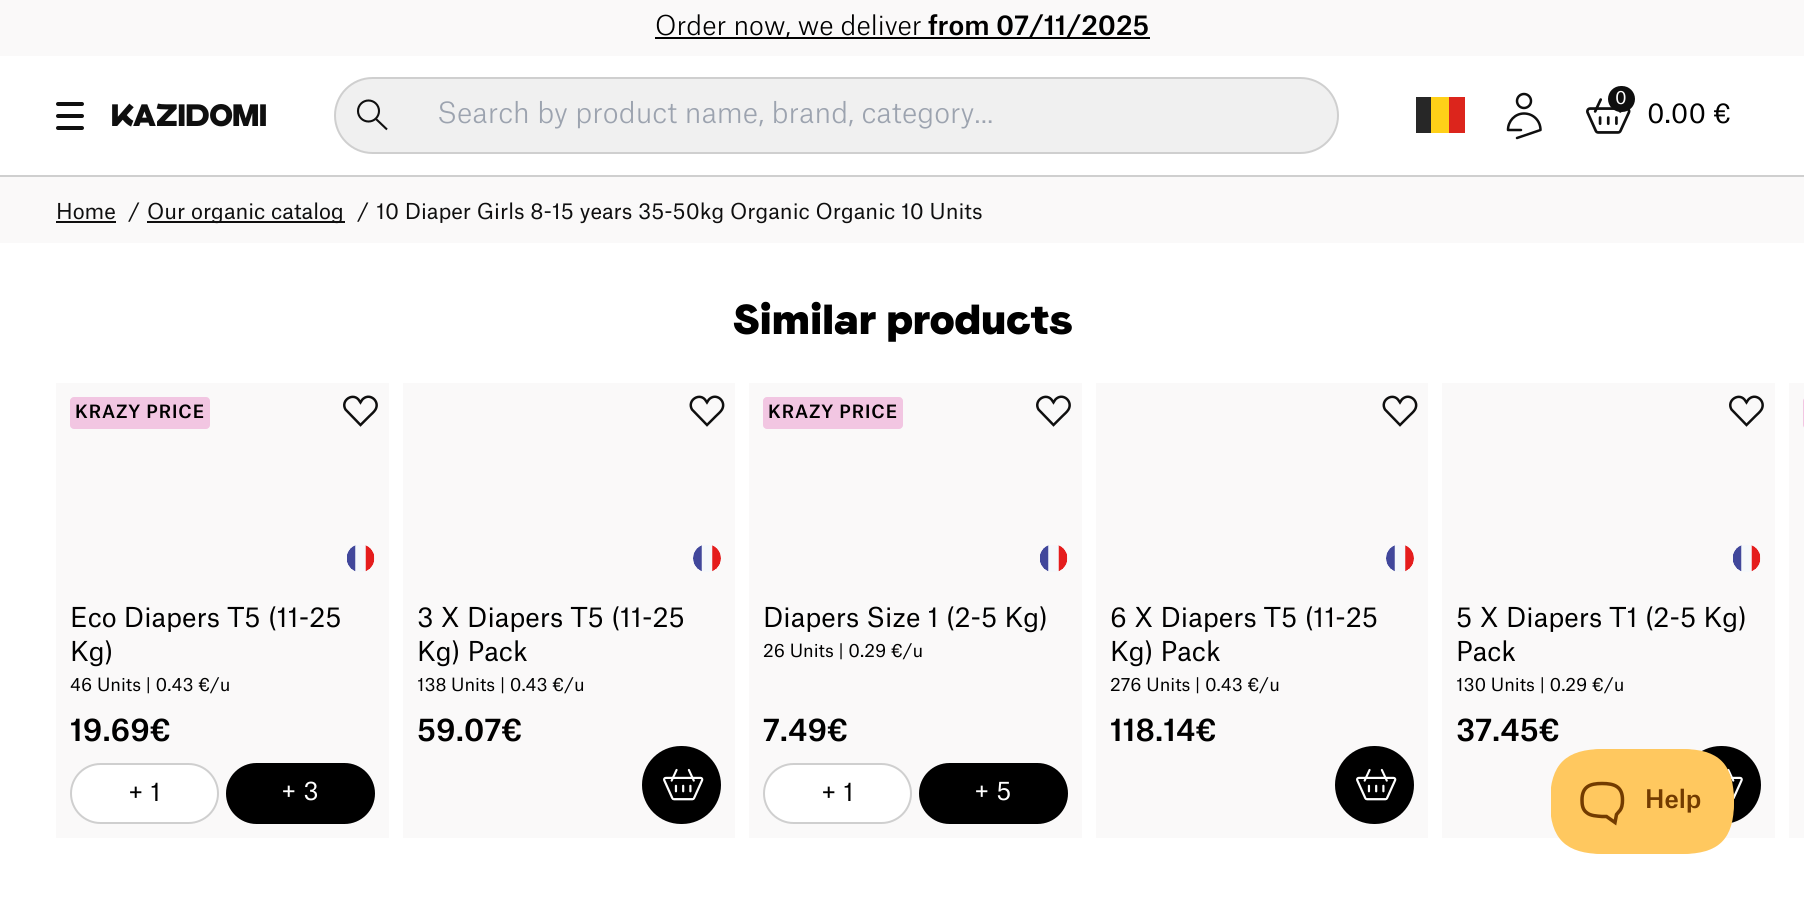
import math
import cairo


def write_spaced(ctx, x, y, s, letter, word):
	ctx.move_to(x, y)
	for ch in s:
		ctx.show_text(ch)
		ctx.rel_move_to(letter + word * (ch == ' '), 0)

def round_path(ctx, x, y, w, h, r):
	ctx.new_sub_path()
	for i, (u, v) in enumerate([(x + w - r, y + h - r), (x + r, y + h - r), (x + r, y + r), (x + w - r, y + r)]):
		ctx.arc(u, v, r, i * math.pi / 2, (i + 1) * math.pi / 2)
	ctx.close_path()

def paste(ctx, path, x, y, w, h):
	ctx.save()
	ctx.set_source_surface(cairo.ImageSurface.create_from_png(path), x, y)
	ctx.rectangle(x, y, w, h)
	ctx.fill()
	ctx.restore()

def draw(ctx):
	ctx.set_source_rgb(1, 1, 1)
	ctx.paint()
	ctx.set_source_rgb(0.98, 0.976, 0.973)
	ctx.rectangle(0, 0, 1804, 56)
	ctx.fill()
	ctx.set_source_rgb(0, 0, 0)
	ctx.rectangle(655, 37, 495, 2)
	ctx.fill()
	ctx.select_font_face('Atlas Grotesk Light')
	ctx.set_font_size(26.25)
	ctx.move_to(655, 35)
	ctx.show_text('Order now, we deliver')
	ctx.select_font_face('Atlas Grotesk Medium')
	ctx.move_to(928, 35)
	ctx.show_text('from 07/11/2025')
	ctx.set_source_rgb(0.812, 0.812, 0.812)
	ctx.rectangle(0, 175, 1804, 2)
	ctx.fill()
	ctx.set_source_rgb(0.059, 0.059, 0.059)
	round_path(ctx, 56, 102, 28, 4, 2)
	ctx.fill()
	round_path(ctx, 56, 114, 28, 4, 2)
	ctx.fill()
	round_path(ctx, 56, 126, 28, 4, 2)
	ctx.fill()
	paste(ctx, 'media/1.png', 112, 103, 154, 24)
	ctx.set_source_rgb(0.941, 0.941, 0.941)
	round_path(ctx, 335, 78, 1003, 75, 37.5)
	ctx.fill_preserve()
	ctx.set_source_rgb(0.812, 0.812, 0.812)
	ctx.stroke()
	ctx.new_path()
	ctx.move_to(376, 119)
	ctx.line_to(387, 129.5)
	ctx.set_source_rgb(0.059, 0.059, 0.059)
	ctx.set_line_width(2.1)
	ctx.stroke()
	ctx.arc(368.5, 111, 10.5, 0, 2 * math.pi)
	ctx.stroke()
	ctx.select_font_face('Atlas Grotesk Light')
	ctx.set_font_size(28)
	ctx.set_source_rgb(0.612, 0.639, 0.686)
	ctx.move_to(437, 123)
	ctx.show_text('Search by product name, brand, category...')
	ctx.set_source_rgb(1, 0.816, 0.094)
	ctx.rectangle(1431, 97, 18, 36)
	ctx.fill()
	ctx.set_source_rgb(0.153, 0.153, 0.153)
	ctx.rectangle(1416, 97, 15, 36)
	ctx.fill()
	ctx.set_source_rgb(0.863, 0.145, 0.11)
	ctx.rectangle(1449, 97, 16, 36)
	ctx.fill()
	ctx.new_path()
	ctx.move_to(1517, 138)
	ctx.line_to(1540.5, 130)
	ctx.curve_to(1540.5, 121, 1533.5, 113.5, 1524, 113.5)
	ctx.curve_to(1515, 113.5, 1508, 121, 1508, 130)
	ctx.line_to(1521, 130)
	ctx.set_source_rgb(0.059, 0.059, 0.059)
	ctx.set_line_width(2.5)
	ctx.set_line_cap(cairo.LINE_CAP_ROUND)
	ctx.set_line_join(cairo.LINE_JOIN_ROUND)
	ctx.stroke()
	ctx.arc(1524, 101, 7, 0, 2 * math.pi)
	ctx.set_line_cap(cairo.LINE_CAP_BUTT)
	ctx.set_line_join(cairo.LINE_JOIN_MITER)
	ctx.stroke()
	paste(ctx, 'media/2.png', 1586, 98, 45, 36)
	round_path(ctx, 1608, 86, 27, 26, 13)
	ctx.fill()
	ctx.select_font_face('Atlas Grotesk')
	ctx.set_font_size(17.5)
	ctx.set_source_rgb(1, 1, 1)
	ctx.move_to(1615, 104)
	ctx.show_text('0')
	ctx.set_font_size(26.25)
	ctx.set_source_rgb(0, 0, 0)
	ctx.move_to(1647, 123)
	ctx.show_text('0.00 €')
	ctx.set_source_rgb(0.98, 0.976, 0.973)
	ctx.rectangle(0, 177, 1804, 66)
	ctx.fill()
	ctx.set_font_size(21)
	ctx.set_source_rgb(0.059, 0.059, 0.059)
	ctx.move_to(56, 219)
	ctx.show_text('Home')
	ctx.rectangle(56, 221, 60, 2)
	ctx.fill()
	ctx.move_to(128, 219)
	ctx.show_text('/')
	ctx.rectangle(147, 221, 198, 2)
	ctx.fill()
	for x, y, s in [
		(147, 219, 'Our organic catalog'),
		(357, 219, '/'),
		(376, 219, '10 Diaper Girls 8-15 years 35-50kg Organic Organic 10 Units'),
	]:
		ctx.move_to(x, y)
		ctx.show_text(s)
	ctx.select_font_face('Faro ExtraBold')
	ctx.set_font_size(42)
	ctx.set_source_rgb(0, 0, 0)
	ctx.move_to(733, 334)
	ctx.show_text('Similar products')
	ctx.set_source_rgb(0.98, 0.976, 0.973)
	ctx.rectangle(56, 383, 333, 455)
	ctx.fill()
	ctx.set_source_rgb(0.949, 0.776, 0.886)
	round_path(ctx, 70, 397, 140, 32, 4)
	ctx.fill()
	ctx.select_font_face('Atlas Grotesk Medium')
	ctx.set_font_size(17.5)
	ctx.set_source_rgb(0, 0, 0)
	write_spaced(ctx, 75, 418, 'KRAZY PRICE', 0.9, 0)
	paste(ctx, 'media/3.png', 347, 545, 28, 27)
	ctx.new_path()
	ctx.move_to(359.5, 401)
	ctx.line_to(360.5, 402.5)
	ctx.curve_to(361.5, 401, 362, 399.5, 363.5, 398.5)
	ctx.curve_to(370.5, 393, 380, 401.5, 375.5, 409.5)
	ctx.curve_to(374, 412, 371.5, 414, 369.5, 416)
	ctx.line_to(360.5, 425)
	ctx.line_to(345.5, 409.5)
	ctx.curve_to(340, 400, 354, 391.5, 359.5, 401)
	ctx.close_path()
	ctx.set_source_rgb(0.059, 0.059, 0.059)
	ctx.stroke()
	ctx.select_font_face('Atlas Grotesk')
	ctx.set_font_size(26.25)
	ctx.set_source_rgb(0, 0, 0)
	ctx.move_to(70, 627)
	ctx.show_text('Eco Diapers T5 (11-25')
	ctx.move_to(70, 661)
	ctx.show_text('Kg)')
	ctx.set_font_size(17.5)
	ctx.move_to(70, 691)
	ctx.show_text('46 Units | 0.43 €/u')
	ctx.select_font_face('Atlas Grotesk Medium')
	ctx.set_font_size(30)
	ctx.move_to(70, 741)
	ctx.show_text('19.69€')
	ctx.set_source_rgb(1, 1, 1)
	round_path(ctx, 71, 764, 147, 59, 29.5)
	ctx.fill_preserve()
	ctx.set_source_rgb(0.812, 0.812, 0.812)
	ctx.set_line_width(2)
	ctx.stroke()
	ctx.select_font_face('Atlas Grotesk')
	ctx.set_font_size(24.5)
	ctx.set_source_rgb(0, 0, 0)
	ctx.move_to(128, 801)
	ctx.show_text('+ 1')
	round_path(ctx, 227, 764, 147, 59, 29.5)
	ctx.fill_preserve()
	ctx.stroke()
	ctx.set_source_rgb(1, 1, 1)
	ctx.move_to(281, 800)
	ctx.show_text('+ 3')
	ctx.set_source_rgb(0.98, 0.976, 0.973)
	ctx.rectangle(403, 383, 332, 455)
	ctx.fill()
	ctx.new_path()
	ctx.move_to(706, 401)
	ctx.line_to(707, 402.5)
	ctx.curve_to(708, 401, 708.5, 399.5, 710, 398.5)
	ctx.curve_to(717, 393, 726.5, 401.5, 722, 409.5)
	ctx.curve_to(720.5, 412, 718, 414, 716, 416)
	ctx.line_to(707, 425)
	ctx.line_to(692, 409.5)
	ctx.curve_to(686.5, 400, 700.5, 391.5, 706, 401)
	ctx.close_path()
	ctx.set_source_rgb(0.059, 0.059, 0.059)
	ctx.set_line_width(2.5)
	ctx.stroke()
	paste(ctx, 'media/4.png', 693, 545, 28, 27)
	ctx.set_font_size(26.25)
	ctx.set_source_rgb(0, 0, 0)
	ctx.move_to(417, 627)
	ctx.show_text('3 X Diapers T5 (11-25')
	ctx.move_to(417, 661)
	ctx.show_text('Kg) Pack')
	ctx.set_font_size(17.5)
	ctx.move_to(417, 691)
	ctx.show_text('138 Units | 0.43 €/u')
	ctx.select_font_face('Atlas Grotesk Medium')
	ctx.set_font_size(30)
	ctx.move_to(417, 741)
	ctx.show_text('59.07€')
	round_path(ctx, 643, 747, 77, 76, 38)
	ctx.fill_preserve()
	ctx.set_line_width(2)
	ctx.stroke()
	paste(ctx, 'media/5.png', 663, 768, 41, 33)
	ctx.set_source_rgb(0.98, 0.976, 0.973)
	ctx.rectangle(749, 383, 333, 455)
	ctx.fill()
	ctx.set_source_rgb(0.949, 0.776, 0.886)
	round_path(ctx, 763, 397, 140, 32, 4)
	ctx.fill()
	ctx.set_font_size(17.5)
	ctx.set_source_rgb(0, 0, 0)
	write_spaced(ctx, 768, 418, 'KRAZY PRICE', 0.9, 0)
	paste(ctx, 'media/3.png', 1040, 545, 28, 27)
	ctx.new_path()
	ctx.move_to(1052.5, 401)
	ctx.line_to(1053.5, 402.5)
	ctx.curve_to(1054.5, 401, 1055, 399.5, 1056.5, 398.5)
	ctx.curve_to(1063.5, 393, 1073, 401.5, 1068.5, 409.5)
	ctx.curve_to(1067, 412, 1064.5, 414, 1062.5, 416)
	ctx.line_to(1053.5, 425)
	ctx.line_to(1038.5, 409.5)
	ctx.curve_to(1033, 400, 1047, 391.5, 1052.5, 401)
	ctx.close_path()
	ctx.set_source_rgb(0.059, 0.059, 0.059)
	ctx.set_line_width(2.5)
	ctx.stroke()
	ctx.select_font_face('Atlas Grotesk')
	ctx.set_font_size(26.25)
	ctx.set_source_rgb(0, 0, 0)
	ctx.move_to(763, 627)
	ctx.show_text('Diapers Size 1 (2-5 Kg)')
	ctx.set_font_size(17.5)
	ctx.move_to(763, 657)
	ctx.show_text('26 Units | 0.29 €/u')
	ctx.select_font_face('Atlas Grotesk Medium')
	ctx.set_font_size(30)
	ctx.move_to(763, 741)
	ctx.show_text('7.49€')
	ctx.set_source_rgb(1, 1, 1)
	round_path(ctx, 764, 764, 147, 59, 29.5)
	ctx.fill_preserve()
	ctx.set_source_rgb(0.812, 0.812, 0.812)
	ctx.set_line_width(2)
	ctx.stroke()
	ctx.select_font_face('Atlas Grotesk')
	ctx.set_font_size(24.5)
	ctx.set_source_rgb(0, 0, 0)
	ctx.move_to(821, 801)
	ctx.show_text('+ 1')
	round_path(ctx, 920, 764, 147, 59, 29.5)
	ctx.fill_preserve()
	ctx.stroke()
	ctx.set_source_rgb(1, 1, 1)
	ctx.move_to(974, 800)
	ctx.show_text('+ 5')
	ctx.set_source_rgb(0.98, 0.976, 0.973)
	ctx.rectangle(1096, 383, 332, 455)
	ctx.fill()
	ctx.new_path()
	ctx.move_to(1399, 401)
	ctx.line_to(1400, 402.5)
	ctx.curve_to(1401, 401, 1401.5, 399.5, 1403, 398.5)
	ctx.curve_to(1410, 393, 1419.5, 401.5, 1415, 409.5)
	ctx.curve_to(1413.5, 412, 1411, 414, 1409, 416)
	ctx.line_to(1400, 425)
	ctx.line_to(1385, 409.5)
	ctx.curve_to(1379.5, 400, 1393.5, 391.5, 1399, 401)
	ctx.close_path()
	ctx.set_source_rgb(0.059, 0.059, 0.059)
	ctx.set_line_width(2.5)
	ctx.stroke()
	paste(ctx, 'media/4.png', 1386, 545, 28, 27)
	ctx.set_font_size(26.25)
	ctx.set_source_rgb(0, 0, 0)
	ctx.move_to(1110, 627)
	ctx.show_text('6 X Diapers T5 (11-25')
	ctx.move_to(1110, 661)
	ctx.show_text('Kg) Pack')
	ctx.set_font_size(17.5)
	ctx.move_to(1110, 691)
	ctx.show_text('276 Units | 0.43 €/u')
	ctx.select_font_face('Atlas Grotesk Medium')
	ctx.set_font_size(30)
	ctx.move_to(1110, 741)
	ctx.show_text('118.14€')
	round_path(ctx, 1336, 747, 77, 76, 38)
	ctx.fill_preserve()
	ctx.set_line_width(2)
	ctx.stroke()
	paste(ctx, 'media/5.png', 1356, 768, 41, 33)
	ctx.set_source_rgb(0.98, 0.976, 0.973)
	ctx.rectangle(1442, 383, 333, 455)
	ctx.fill()
	ctx.new_path()
	ctx.move_to(1745.5, 401)
	ctx.line_to(1746.5, 402.5)
	ctx.curve_to(1747.5, 401, 1748, 399.5, 1749.5, 398.5)
	ctx.curve_to(1756.5, 393, 1766, 401.5, 1761.5, 409.5)
	ctx.curve_to(1760, 412, 1757.5, 414, 1755.5, 416)
	ctx.line_to(1746.5, 425)
	ctx.line_to(1731.5, 409.5)
	ctx.curve_to(1726, 400, 1740, 391.5, 1745.5, 401)
	ctx.close_path()
	ctx.set_source_rgb(0.059, 0.059, 0.059)
	ctx.set_line_width(2.5)
	ctx.stroke()
	paste(ctx, 'media/3.png', 1733, 545, 28, 27)
	ctx.select_font_face('Atlas Grotesk')
	ctx.set_font_size(26.25)
	ctx.set_source_rgb(0, 0, 0)
	ctx.move_to(1456, 627)
	ctx.show_text('5 X Diapers T1 (2-5 Kg)')
	ctx.move_to(1456, 661)
	ctx.show_text('Pack')
	ctx.set_font_size(17.5)
	ctx.move_to(1456, 691)
	ctx.show_text('130 Units | 0.29 €/u')
	ctx.select_font_face('Atlas Grotesk Medium')
	ctx.set_font_size(30)
	ctx.move_to(1456, 741)
	ctx.show_text('37.45€')
	round_path(ctx, 1683, 747, 77, 76, 38)
	ctx.fill_preserve()
	ctx.set_line_width(2)
	ctx.stroke()
	paste(ctx, 'media/6.png', 1727, 768, 16, 32)
	ctx.set_source_rgb(0.98, 0.976, 0.973)
	ctx.rectangle(1789, 383, 15, 455)
	ctx.fill()
	ctx.set_source_rgb(0.949, 0.776, 0.886)
	ctx.new_path()
	ctx.move_to(1807, 397)
	ctx.line_to(1804, 397)
	ctx.line_to(1804, 429)
	ctx.line_to(1807, 429)
	ctx.curve_to(1805, 429, 1803, 427, 1803, 425)
	ctx.line_to(1803, 401)
	ctx.curve_to(1803, 399, 1805, 397, 1807, 397)
	ctx.close_path()
	ctx.fill()
	ctx.set_source_rgb(1, 0.784, 0.373)
	round_path(ctx, 1551, 749, 183, 105, 52.5)
	ctx.fill()
	ctx.save()
	ctx.rectangle(1551, 749, 105, 105)
	ctx.clip()
	ctx.new_path()
	ctx.move_to(1656, 802)
	ctx.curve_to(1656, 839, 1640, 854, 1603, 854)
	ctx.curve_to(1566, 854, 1550, 839, 1550, 802)
	ctx.curve_to(1550, 764, 1566, 749, 1603, 749)
	ctx.curve_to(1640, 749, 1656, 764, 1656, 802)
	ctx.close_path()
	ctx.fill()
	ctx.restore()
	ctx.new_path()
	ctx.move_to(1622.5, 800)
	ctx.curve_to(1622.5, 804, 1622, 808.5, 1619, 811.5)
	ctx.line_to(1616.5, 814.5)
	ctx.line_to(1615, 822.5)
	ctx.line_to(1606.5, 816.5)
	ctx.line_to(1602, 816.5)
	ctx.curve_to(1597, 816, 1590.5, 816, 1586.5, 812.5)
	ctx.curve_to(1582.5, 809.5, 1582, 804.5, 1582, 800)
	ctx.curve_to(1582, 786.5, 1590, 783.5, 1602, 783.5)
	ctx.curve_to(1614.5, 783.5, 1622.5, 786.5, 1622.5, 800)
	ctx.close_path()
	ctx.set_source_rgb(0.447, 0.231, 0)
	ctx.set_line_width(3.5)
	ctx.stroke()
	ctx.set_source_rgb(1, 0.784, 0.373)
	ctx.new_path()
	ctx.move_to(1734, 802)
	ctx.curve_to(1734, 839, 1719, 854, 1682, 854)
	ctx.curve_to(1645, 854, 1629, 839, 1629, 802)
	ctx.curve_to(1629, 764, 1645, 749, 1682, 749)
	ctx.curve_to(1719, 749, 1734, 764, 1734, 802)
	ctx.close_path()
	ctx.fill()
	ctx.set_font_size(24.5)
	ctx.set_source_rgb(0.447, 0.231, 0)
	ctx.move_to(1645, 808)
	ctx.show_text('Help')


surface = cairo.ImageSurface(cairo.FORMAT_RGB24, 1804, 923)
ctx = cairo.Context(surface)
options = cairo.FontOptions()
options.set_hint_metrics(cairo.HINT_METRICS_OFF)
options.set_hint_style(cairo.HINT_STYLE_NONE)
ctx.set_font_options(options)
ctx.set_miter_limit(4)
draw(ctx)
surface.write_to_png('image.png')
